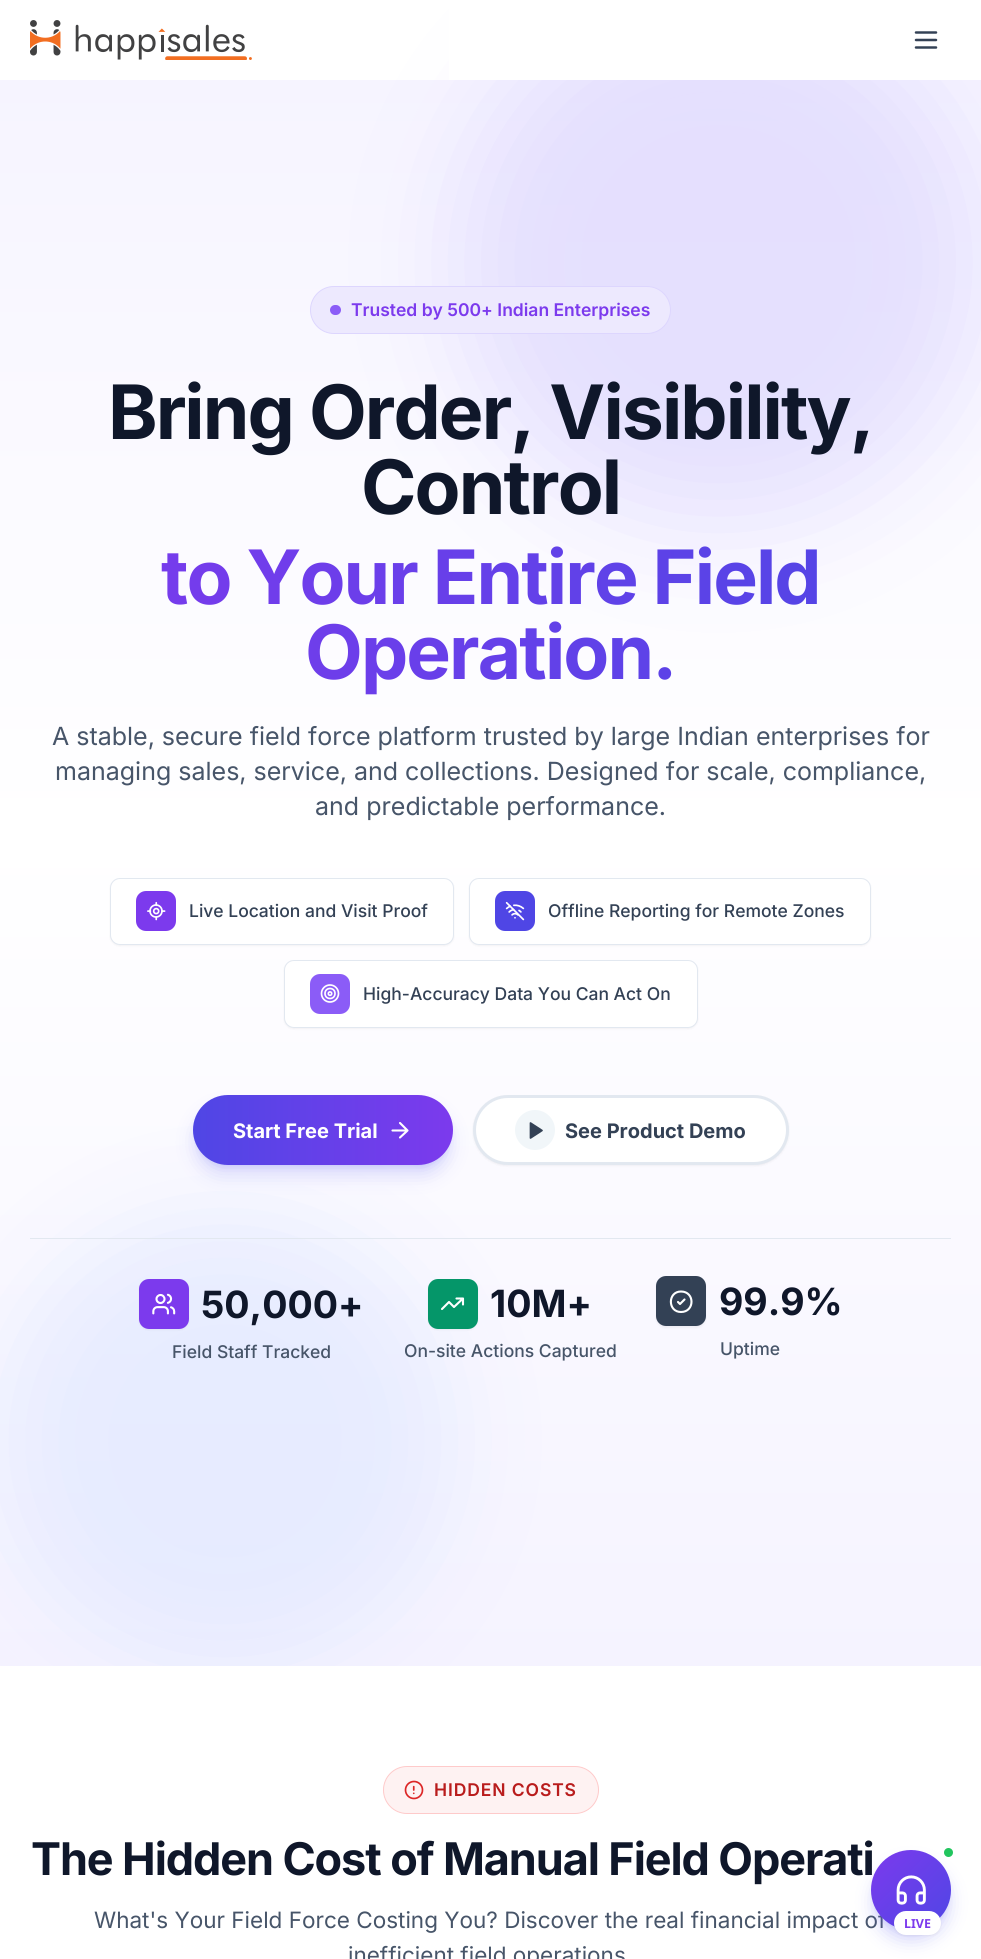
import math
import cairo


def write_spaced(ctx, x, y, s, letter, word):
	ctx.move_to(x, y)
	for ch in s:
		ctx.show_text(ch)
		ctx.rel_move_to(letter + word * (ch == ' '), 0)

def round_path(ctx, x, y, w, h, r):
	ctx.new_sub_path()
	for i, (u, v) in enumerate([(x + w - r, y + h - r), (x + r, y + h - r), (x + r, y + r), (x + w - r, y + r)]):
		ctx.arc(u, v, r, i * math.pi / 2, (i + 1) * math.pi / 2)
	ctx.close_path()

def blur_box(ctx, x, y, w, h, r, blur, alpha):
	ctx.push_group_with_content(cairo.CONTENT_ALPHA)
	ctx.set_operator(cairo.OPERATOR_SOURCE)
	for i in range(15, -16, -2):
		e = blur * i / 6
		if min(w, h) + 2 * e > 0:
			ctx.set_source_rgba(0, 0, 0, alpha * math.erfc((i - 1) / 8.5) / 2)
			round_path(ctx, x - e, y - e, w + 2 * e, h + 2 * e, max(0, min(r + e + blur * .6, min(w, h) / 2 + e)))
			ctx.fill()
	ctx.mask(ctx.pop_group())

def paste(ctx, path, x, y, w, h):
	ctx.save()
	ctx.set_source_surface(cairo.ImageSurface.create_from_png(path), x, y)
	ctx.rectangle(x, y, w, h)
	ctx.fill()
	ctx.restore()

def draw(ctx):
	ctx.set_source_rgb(1, 1, 1)
	ctx.paint()
	gradient = cairo.LinearGradient(491, 0, 491, 1666)
	gradient.add_color_stop_rgba(0, 0.961, 0.953, 1, 1)
	gradient.add_color_stop_rgba(0.5, 1, 1, 1, 1)
	gradient.add_color_stop_rgba(1, 0.961, 0.953, 1, 1)
	ctx.set_source(gradient)
	ctx.rectangle(0, 80, 981, 1586)
	ctx.fill()
	ctx.set_source_rgb(0.867, 0.839, 0.996)
	blur_box(ctx, 456, 0, 525, 525, 262.5, 50, 0.7)
	ctx.set_source_rgb(1, 1, 1)
	ctx.rectangle(449, 0, 532, 80)
	ctx.fill()
	paste(ctx, 'media/1.png', 30, 20, 222, 40)
	ctx.new_path()
	ctx.move_to(916, 40)
	ctx.line_to(936, 40)
	ctx.move_to(916, 32.5)
	ctx.line_to(936, 32.5)
	ctx.move_to(916, 47.5)
	ctx.line_to(936, 47.5)
	ctx.set_source_rgb(0.2, 0.255, 0.333)
	ctx.set_line_width(2.5)
	ctx.set_line_cap(cairo.LINE_CAP_ROUND)
	ctx.set_line_join(cairo.LINE_JOIN_ROUND)
	ctx.stroke()
	ctx.set_source_rgb(0.929, 0.914, 0.996)
	round_path(ctx, 310.5, 286.5, 360, 47, 23.5)
	ctx.fill_preserve()
	ctx.set_source_rgb(0.867, 0.839, 0.996)
	ctx.set_line_width(1)
	ctx.set_line_cap(cairo.LINE_CAP_BUTT)
	ctx.set_line_join(cairo.LINE_JOIN_MITER)
	ctx.stroke()
	ctx.set_source_rgb(0.545, 0.361, 0.965)
	round_path(ctx, 330, 305, 11, 10, 5)
	ctx.fill()
	ctx.select_font_face('Inter SemiBold')
	ctx.set_font_size(17.5)
	ctx.set_source_rgb(0.486, 0.227, 0.929)
	ctx.move_to(351, 316)
	ctx.show_text('Trusted by 500+ Indian Enterprises')
	ctx.select_font_face('Inter', cairo.FONT_SLANT_NORMAL, cairo.FONT_WEIGHT_BOLD)
	ctx.set_font_size(75)
	ctx.set_source_rgb(0.059, 0.09, 0.165)
	write_spaced(ctx, 108, 439, 'Bring Order, Visibility,', -1.9, 0)
	write_spaced(ctx, 361, 514, 'Control', -1.9, 0)
	gradient = cairo.LinearGradient(40, 614, 941, 614)
	gradient.add_color_stop_rgba(0, 0.486, 0.227, 0.929, 1)
	gradient.add_color_stop_rgba(1, 0.31, 0.275, 0.898, 1)
	ctx.set_source(gradient)
	write_spaced(ctx, 161, 604, 'to Your Entire Field', -1.9, 0)
	write_spaced(ctx, 305, 679, 'Operation.', -1.9, 0)
	ctx.select_font_face('Inter')
	ctx.set_font_size(25)
	ctx.set_source_rgb(0.278, 0.333, 0.412)
	for x, y, s in [
		(52, 745, 'A stable, secure field force platform trusted by large Indian enterprises for'),
		(55, 780, 'managing sales, service, and collections. Designed for scale, compliance,'),
		(315, 815, 'and predictable performance.'),
	]:
		ctx.move_to(x, y)
		ctx.show_text(s)
	ctx.set_source_rgb(0, 0, 0)
	blur_box(ctx, 110, 879, 344, 67, 10, 1, 0.05)
	ctx.set_source_rgb(1, 1, 1)
	round_path(ctx, 110.5, 878.5, 343, 66, 9.5)
	ctx.fill_preserve()
	ctx.set_source_rgb(0.886, 0.91, 0.941)
	ctx.stroke()
	ctx.set_source_rgb(0.486, 0.227, 0.929)
	round_path(ctx, 136, 891, 40, 40, 10)
	ctx.fill()
	paste(ctx, 'media/2.png', 147, 901, 19, 20)
	ctx.select_font_face('Inter Medium')
	ctx.set_font_size(17.5)
	ctx.set_source_rgb(0.2, 0.255, 0.333)
	ctx.move_to(189, 917)
	ctx.show_text('Live Location and Visit Proof')
	ctx.set_source_rgb(0, 0, 0)
	blur_box(ctx, 469, 879, 402, 67, 10, 1, 0.05)
	ctx.set_source_rgb(1, 1, 1)
	round_path(ctx, 469.5, 878.5, 401, 66, 9.5)
	ctx.fill_preserve()
	ctx.set_source_rgb(0.886, 0.91, 0.941)
	ctx.stroke()
	ctx.set_source_rgb(0.31, 0.275, 0.898)
	round_path(ctx, 495, 891, 40, 40, 10)
	ctx.fill()
	paste(ctx, 'media/3.png', 505, 901, 20, 20)
	ctx.set_source_rgb(0.2, 0.255, 0.333)
	ctx.move_to(548, 917)
	ctx.show_text('Offline Reporting for Remote Zones')
	ctx.set_source_rgb(0, 0, 0)
	blur_box(ctx, 284, 961, 414, 68, 10, 1, 0.05)
	ctx.set_source_rgb(1, 1, 1)
	round_path(ctx, 284.5, 960.5, 413, 67, 9.5)
	ctx.fill_preserve()
	ctx.set_source_rgb(0.886, 0.91, 0.941)
	ctx.stroke()
	ctx.set_source_rgb(0.545, 0.361, 0.965)
	round_path(ctx, 310, 974, 40, 40, 10)
	ctx.fill()
	ctx.arc(330, 993.5, 8.5, 0, 2 * math.pi)
	ctx.set_source_rgb(1, 1, 1)
	ctx.set_line_width(1.7)
	ctx.stroke()
	ctx.arc(330, 993.5, 5, 0, 2 * math.pi)
	ctx.stroke()
	ctx.arc(330, 993.6, 1.7, 0, 2 * math.pi)
	ctx.stroke()
	ctx.set_source_rgb(0.2, 0.255, 0.333)
	ctx.move_to(363, 1000)
	ctx.show_text('High-Accuracy Data You Can Act On')
	ctx.set_source_rgb(0.388, 0.4, 0.945)
	blur_box(ctx, 198, 1105, 250, 60, 30, 4, 0.25)
	blur_box(ctx, 196, 1111, 253, 63, 31.5, 9.5, 0.25)
	ctx.save()
	ctx.rectangle(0, 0, 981, 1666)
	ctx.clip()
	ctx.set_source_rgb(0.878, 0.906, 1)
	blur_box(ctx, 0, 1216, 450, 450, 225, 50, 0.7)
	ctx.restore()
	gradient = cairo.LinearGradient(193, 1130, 453, 1130)
	gradient.add_color_stop_rgba(0, 0.31, 0.275, 0.898, 1)
	gradient.add_color_stop_rgba(1, 0.486, 0.227, 0.929, 1)
	ctx.set_source(gradient)
	round_path(ctx, 193, 1095, 260, 70, 35)
	ctx.fill()
	ctx.select_font_face('Inter', cairo.FONT_SLANT_NORMAL, cairo.FONT_WEIGHT_BOLD)
	ctx.set_font_size(20)
	ctx.set_source_rgb(1, 1, 1)
	ctx.move_to(233, 1138)
	ctx.show_text('Start Free Trial')
	ctx.new_path()
	ctx.move_to(392.5, 1130.5)
	ctx.line_to(407.5, 1130.5)
	ctx.move_to(400, 1123)
	ctx.line_to(407.5, 1130.5)
	ctx.line_to(400, 1137.5)
	ctx.set_line_width(2.1)
	ctx.set_line_cap(cairo.LINE_CAP_ROUND)
	ctx.set_line_join(cairo.LINE_JOIN_ROUND)
	ctx.stroke()
	ctx.set_source_rgb(0, 0, 0)
	blur_box(ctx, 473, 1096, 316, 70, 35, 1, 0.05)
	ctx.set_source_rgb(1, 1, 1)
	round_path(ctx, 474.5, 1096.5, 313, 67, 33.5)
	ctx.fill_preserve()
	ctx.set_source_rgb(0.886, 0.91, 0.941)
	ctx.set_line_width(3)
	ctx.set_line_cap(cairo.LINE_CAP_BUTT)
	ctx.set_line_join(cairo.LINE_JOIN_MITER)
	ctx.stroke()
	ctx.set_source_rgb(0.945, 0.961, 0.976)
	ctx.arc(535, 1130, 20, 0, 2 * math.pi)
	ctx.fill()
	ctx.set_source_rgb(0.2, 0.255, 0.333)
	ctx.new_path()
	ctx.move_to(530.5, 1123)
	ctx.line_to(542, 1130.5)
	ctx.line_to(530.5, 1138)
	ctx.close_path()
	ctx.fill_preserve()
	ctx.set_line_width(1.7)
	ctx.set_line_cap(cairo.LINE_CAP_ROUND)
	ctx.set_line_join(cairo.LINE_JOIN_ROUND)
	ctx.stroke()
	ctx.move_to(565, 1138)
	ctx.show_text('See Product Demo')
	ctx.set_source_rgb(0.886, 0.91, 0.941)
	ctx.rectangle(30, 1238, 921, 1)
	ctx.fill()
	ctx.set_source_rgb(0, 0, 0)
	blur_box(ctx, 139, 1280, 50, 50, 10, 1, 0.05)
	ctx.set_source_rgb(0.486, 0.227, 0.929)
	round_path(ctx, 139, 1279, 50, 50, 10)
	ctx.fill()
	paste(ctx, 'media/4.png', 152, 1293, 24, 22)
	ctx.set_font_size(37.5)
	ctx.set_source_rgb(0.059, 0.09, 0.165)
	ctx.move_to(201, 1318)
	ctx.show_text('50,000+')
	ctx.select_font_face('Inter Medium')
	ctx.set_font_size(17.5)
	ctx.set_source_rgb(0.278, 0.333, 0.412)
	ctx.move_to(172, 1358)
	ctx.show_text('Field Staff Tracked')
	ctx.set_source_rgb(0, 0, 0)
	blur_box(ctx, 428, 1280, 50, 50, 10, 1, 0.05)
	ctx.set_source_rgb(0.02, 0.588, 0.412)
	round_path(ctx, 428, 1279, 50, 50, 10)
	ctx.fill()
	ctx.new_path()
	ctx.move_to(463, 1298.5)
	ctx.line_to(454, 1307)
	ctx.line_to(449, 1302)
	ctx.line_to(442, 1309)
	ctx.move_to(456.5, 1298.5)
	ctx.line_to(463, 1298.5)
	ctx.line_to(463, 1304.5)
	ctx.set_source_rgb(1, 1, 1)
	ctx.set_line_width(2.1)
	ctx.stroke()
	ctx.select_font_face('Inter', cairo.FONT_SLANT_NORMAL, cairo.FONT_WEIGHT_BOLD)
	ctx.set_font_size(37.5)
	ctx.set_source_rgb(0.059, 0.09, 0.165)
	ctx.move_to(490, 1317)
	ctx.show_text('10M+')
	ctx.select_font_face('Inter Medium')
	ctx.set_font_size(17.5)
	ctx.set_source_rgb(0.278, 0.333, 0.412)
	ctx.move_to(404, 1357)
	ctx.show_text('On-site Actions Captured')
	ctx.set_source_rgb(0, 0, 0)
	blur_box(ctx, 656, 1278, 50, 50, 10, 1, 0.05)
	ctx.set_source_rgb(0.2, 0.255, 0.333)
	round_path(ctx, 656, 1276, 50, 50, 10)
	ctx.fill()
	ctx.new_path()
	ctx.move_to(681, 1312)
	ctx.curve_to(695, 1312, 695, 1291.5, 681, 1291.5)
	ctx.curve_to(667.5, 1291.5, 667.5, 1312, 681, 1312)
	ctx.close_path()
	ctx.move_to(678, 1302)
	ctx.line_to(680, 1304)
	ctx.line_to(684.5, 1299.5)
	ctx.set_source_rgb(1, 1, 1)
	ctx.stroke()
	ctx.select_font_face('Inter', cairo.FONT_SLANT_NORMAL, cairo.FONT_WEIGHT_BOLD)
	ctx.set_font_size(37.5)
	ctx.set_source_rgb(0.059, 0.09, 0.165)
	ctx.move_to(719, 1315)
	ctx.show_text('99.9%')
	ctx.select_font_face('Inter Medium')
	ctx.set_font_size(17.5)
	ctx.set_source_rgb(0.278, 0.333, 0.412)
	ctx.move_to(720, 1355)
	ctx.show_text('Uptime')
	ctx.set_source_rgb(0.996, 0.949, 0.949)
	round_path(ctx, 383.5, 1766.5, 215, 47, 23.5)
	ctx.fill_preserve()
	ctx.set_source_rgb(0.996, 0.792, 0.792)
	ctx.set_line_width(1)
	ctx.set_line_cap(cairo.LINE_CAP_BUTT)
	ctx.set_line_join(cairo.LINE_JOIN_MITER)
	ctx.stroke()
	paste(ctx, 'media/5.png', 404, 1780, 20, 20)
	ctx.select_font_face('Inter SemiBold')
	ctx.set_source_rgb(0.725, 0.11, 0.11)
	write_spaced(ctx, 434, 1796, 'HIDDEN COSTS', 0.9, 0)
	ctx.select_font_face('Inter', cairo.FONT_SLANT_NORMAL, cairo.FONT_WEIGHT_BOLD)
	ctx.set_font_size(45)
	ctx.set_source_rgb(0.059, 0.09, 0.165)
	write_spaced(ctx, 31, 1875, 'The Hidden Cost of Manual Field Operati', -1.1, 0)
	ctx.select_font_face('Inter')
	ctx.set_font_size(22.5)
	ctx.set_source_rgb(0.278, 0.333, 0.412)
	ctx.move_to(94, 1928)
	ctx.show_text('What\'s Your Field Force Costing You? Discover the real financial impact of')
	ctx.move_to(348, 1963)
	ctx.show_text('inefficient field operations')
	ctx.set_source_rgb(0.388, 0.4, 0.945)
	blur_box(ctx, 876, 1860, 70, 70, 35, 4, 0.3)
	blur_box(ctx, 875, 1866, 73, 73, 36.5, 9.5, 0.3)
	gradient = cairo.LinearGradient(871, 1850, 951, 1930)
	gradient.add_color_stop_rgba(0, 0.486, 0.227, 0.929, 1)
	gradient.add_color_stop_rgba(1, 0.31, 0.275, 0.898, 1)
	ctx.set_source(gradient)
	ctx.arc(911, 1890, 40, 0, 2 * math.pi)
	ctx.fill()
	ctx.set_source_rgb(0.133, 0.773, 0.369)
	ctx.arc(948.5, 1852.5, 6, 0, 2 * math.pi)
	ctx.fill_preserve()
	ctx.set_source_rgb(1, 1, 1)
	ctx.set_line_width(3)
	ctx.stroke()
	paste(ctx, 'media/6.png', 896, 1875, 30, 30)
	ctx.set_source_rgb(0, 0, 0)
	blur_box(ctx, 894, 1913, 47, 23, 11.5, 1, 0.05)
	ctx.set_source_rgb(1, 1, 1)
	round_path(ctx, 894, 1911, 47, 24, 12)
	ctx.fill()
	ctx.select_font_face('Noto Sans', cairo.FONT_SLANT_NORMAL, cairo.FONT_WEIGHT_BOLD)
	ctx.set_font_size(12.5)
	ctx.set_source_rgb(0.486, 0.227, 0.929)
	ctx.move_to(904, 1928)
	ctx.show_text('LIVE')


surface = cairo.ImageSurface(cairo.FORMAT_RGB24, 981, 1959)
ctx = cairo.Context(surface)
options = cairo.FontOptions()
options.set_hint_metrics(cairo.HINT_METRICS_OFF)
options.set_hint_style(cairo.HINT_STYLE_NONE)
ctx.set_font_options(options)
ctx.set_miter_limit(4)
draw(ctx)
surface.write_to_png('image.png')
